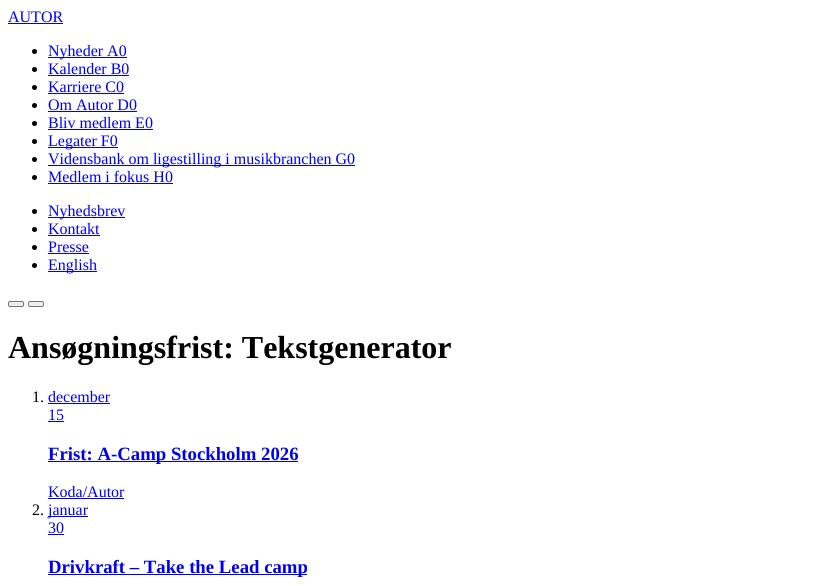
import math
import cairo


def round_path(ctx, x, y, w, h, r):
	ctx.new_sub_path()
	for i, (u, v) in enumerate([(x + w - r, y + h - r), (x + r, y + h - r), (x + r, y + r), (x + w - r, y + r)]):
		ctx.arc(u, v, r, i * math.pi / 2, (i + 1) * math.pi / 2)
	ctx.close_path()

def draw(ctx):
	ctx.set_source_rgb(1, 1, 1)
	ctx.paint()
	ctx.select_font_face('Liberation Serif')
	ctx.set_font_size(16)
	ctx.set_source_rgb(0, 0, 0.933)
	ctx.move_to(8, 22)
	ctx.show_text('AUTOR')
	ctx.rectangle(8, 23, 55, 1)
	ctx.fill()
	ctx.set_source_rgb(0, 0, 0)
	ctx.arc(34.5, 51.5, 2.5, 0, 2 * math.pi)
	ctx.fill()
	ctx.set_source_rgb(0, 0, 0.933)
	ctx.rectangle(48, 57, 79, 1)
	ctx.fill()
	ctx.move_to(48, 56)
	ctx.show_text('Nyheder A0')
	ctx.set_source_rgb(0, 0, 0)
	ctx.new_path()
	ctx.arc(34.5, 69.5, 2.5, 0, 2 * math.pi)
	ctx.fill()
	ctx.set_source_rgb(0, 0, 0.933)
	ctx.move_to(48, 74)
	ctx.show_text('Kalender B0')
	ctx.rectangle(48, 75, 81, 1)
	ctx.fill()
	ctx.set_source_rgb(0, 0, 0)
	ctx.arc(34.5, 87.5, 2.5, 0, 2 * math.pi)
	ctx.fill()
	ctx.set_source_rgb(0, 0, 0.933)
	ctx.move_to(48, 92)
	ctx.show_text('Karriere C0')
	ctx.rectangle(48, 93, 76, 1)
	ctx.fill()
	ctx.set_source_rgb(0, 0, 0)
	ctx.arc(34.5, 105.5, 2.5, 0, 2 * math.pi)
	ctx.fill()
	ctx.set_source_rgb(0, 0, 0.933)
	ctx.move_to(48, 110)
	ctx.show_text('Om Autor D0')
	ctx.rectangle(48, 111, 89, 1)
	ctx.fill()
	ctx.set_source_rgb(0, 0, 0)
	ctx.arc(34.5, 123.5, 2.5, 0, 2 * math.pi)
	ctx.fill()
	ctx.set_source_rgb(0, 0, 0.933)
	ctx.move_to(48, 128)
	ctx.show_text('Bliv medlem E0')
	ctx.rectangle(48, 129, 105, 1)
	ctx.fill()
	ctx.set_source_rgb(0, 0, 0)
	ctx.arc(34.5, 141.5, 2.5, 0, 2 * math.pi)
	ctx.fill()
	ctx.set_source_rgb(0, 0, 0.933)
	ctx.rectangle(48, 147, 70, 1)
	ctx.fill()
	ctx.move_to(48, 146)
	ctx.show_text('Legater F0')
	ctx.set_source_rgb(0, 0, 0)
	ctx.new_path()
	ctx.arc(34.5, 159.5, 2.5, 0, 2 * math.pi)
	ctx.fill()
	ctx.set_source_rgb(0, 0, 0.933)
	ctx.rectangle(48, 165, 307, 1)
	ctx.fill()
	ctx.move_to(48, 164)
	ctx.show_text('Vidensbank om ligestilling i musikbranchen G0')
	ctx.set_source_rgb(0, 0, 0)
	ctx.new_path()
	ctx.arc(34.5, 177.5, 2.5, 0, 2 * math.pi)
	ctx.fill()
	ctx.set_source_rgb(0, 0, 0.933)
	ctx.move_to(48, 182)
	ctx.show_text('Medlem i fokus H0')
	ctx.rectangle(48, 183, 125, 1)
	ctx.fill()
	ctx.set_source_rgb(0, 0, 0)
	ctx.arc(34.5, 211.5, 2.5, 0, 2 * math.pi)
	ctx.fill()
	ctx.set_source_rgb(0, 0, 0.933)
	ctx.rectangle(48, 217, 77, 1)
	ctx.fill()
	ctx.move_to(48, 216)
	ctx.show_text('Nyhedsbrev')
	ctx.set_source_rgb(0, 0, 0)
	ctx.new_path()
	ctx.arc(34.5, 229.5, 2.5, 0, 2 * math.pi)
	ctx.fill()
	ctx.set_source_rgb(0, 0, 0.933)
	ctx.move_to(48, 234)
	ctx.show_text('Kontakt')
	ctx.rectangle(48, 235, 52, 1)
	ctx.fill()
	ctx.set_source_rgb(0, 0, 0)
	ctx.arc(34.5, 247.5, 2.5, 0, 2 * math.pi)
	ctx.fill()
	ctx.set_source_rgb(0, 0, 0.933)
	ctx.move_to(48, 252)
	ctx.show_text('Presse')
	ctx.rectangle(48, 253, 41, 1)
	ctx.fill()
	ctx.set_source_rgb(0, 0, 0)
	ctx.arc(34.5, 265.5, 2.5, 0, 2 * math.pi)
	ctx.fill()
	ctx.set_source_rgb(0, 0, 0.933)
	ctx.rectangle(48, 271, 49, 1)
	ctx.fill()
	ctx.move_to(48, 270)
	ctx.show_text('English')
	ctx.set_source_rgb(0.937, 0.937, 0.937)
	round_path(ctx, 8.5, 301.5, 15, 5, 1.5)
	ctx.fill_preserve()
	ctx.set_source_rgb(0.463, 0.463, 0.463)
	ctx.set_line_width(1)
	ctx.stroke()
	ctx.set_source_rgb(0.937, 0.937, 0.937)
	round_path(ctx, 28.5, 301.5, 15, 5, 1.5)
	ctx.fill_preserve()
	ctx.set_source_rgb(0.463, 0.463, 0.463)
	ctx.stroke()
	ctx.select_font_face('Liberation Serif', cairo.FONT_SLANT_NORMAL, cairo.FONT_WEIGHT_BOLD)
	ctx.set_font_size(32)
	ctx.set_source_rgb(0, 0, 0)
	ctx.move_to(8, 358)
	ctx.show_text('Ansøgningsfrist: Tekstgenerator')
	ctx.select_font_face('Liberation Serif')
	ctx.set_font_size(16)
	ctx.move_to(32, 402)
	ctx.show_text('1.')
	ctx.set_source_rgb(0, 0, 0.933)
	ctx.move_to(48, 402)
	ctx.show_text('december')
	ctx.rectangle(48, 403, 62, 1)
	ctx.fill()
	ctx.move_to(48, 420)
	ctx.show_text('15')
	ctx.rectangle(48, 421, 16, 1)
	ctx.fill()
	ctx.rectangle(48, 461, 250, 1)
	ctx.fill()
	ctx.select_font_face('Liberation Serif', cairo.FONT_SLANT_NORMAL, cairo.FONT_WEIGHT_BOLD)
	ctx.set_font_size(18.75)
	ctx.move_to(48, 460)
	ctx.show_text('Frist: A-Camp Stockholm 2026')
	ctx.select_font_face('Liberation Serif')
	ctx.set_font_size(16)
	ctx.move_to(48, 497)
	ctx.show_text('Koda/Autor')
	ctx.rectangle(48, 498, 76, 1)
	ctx.fill()
	ctx.set_source_rgb(0, 0, 0)
	ctx.move_to(32, 515)
	ctx.show_text('2.')
	ctx.set_source_rgb(0, 0, 0.933)
	ctx.rectangle(48, 516, 40, 1)
	ctx.fill()
	ctx.move_to(48, 515)
	ctx.show_text('januar')
	ctx.move_to(48, 533)
	ctx.show_text('30')
	ctx.rectangle(48, 534, 16, 1)
	ctx.fill()
	ctx.rectangle(48, 574, 259, 1)
	ctx.fill()
	ctx.select_font_face('Liberation Serif', cairo.FONT_SLANT_NORMAL, cairo.FONT_WEIGHT_BOLD)
	ctx.set_font_size(18.75)
	ctx.move_to(48, 573)
	ctx.show_text('Drivkraft – Take the Lead camp')


surface = cairo.ImageSurface(cairo.FORMAT_RGB24, 826, 586)
ctx = cairo.Context(surface)
options = cairo.FontOptions()
options.set_hint_metrics(cairo.HINT_METRICS_OFF)
options.set_hint_style(cairo.HINT_STYLE_NONE)
ctx.set_font_options(options)
ctx.set_miter_limit(4)
draw(ctx)
surface.write_to_png('image.png')
